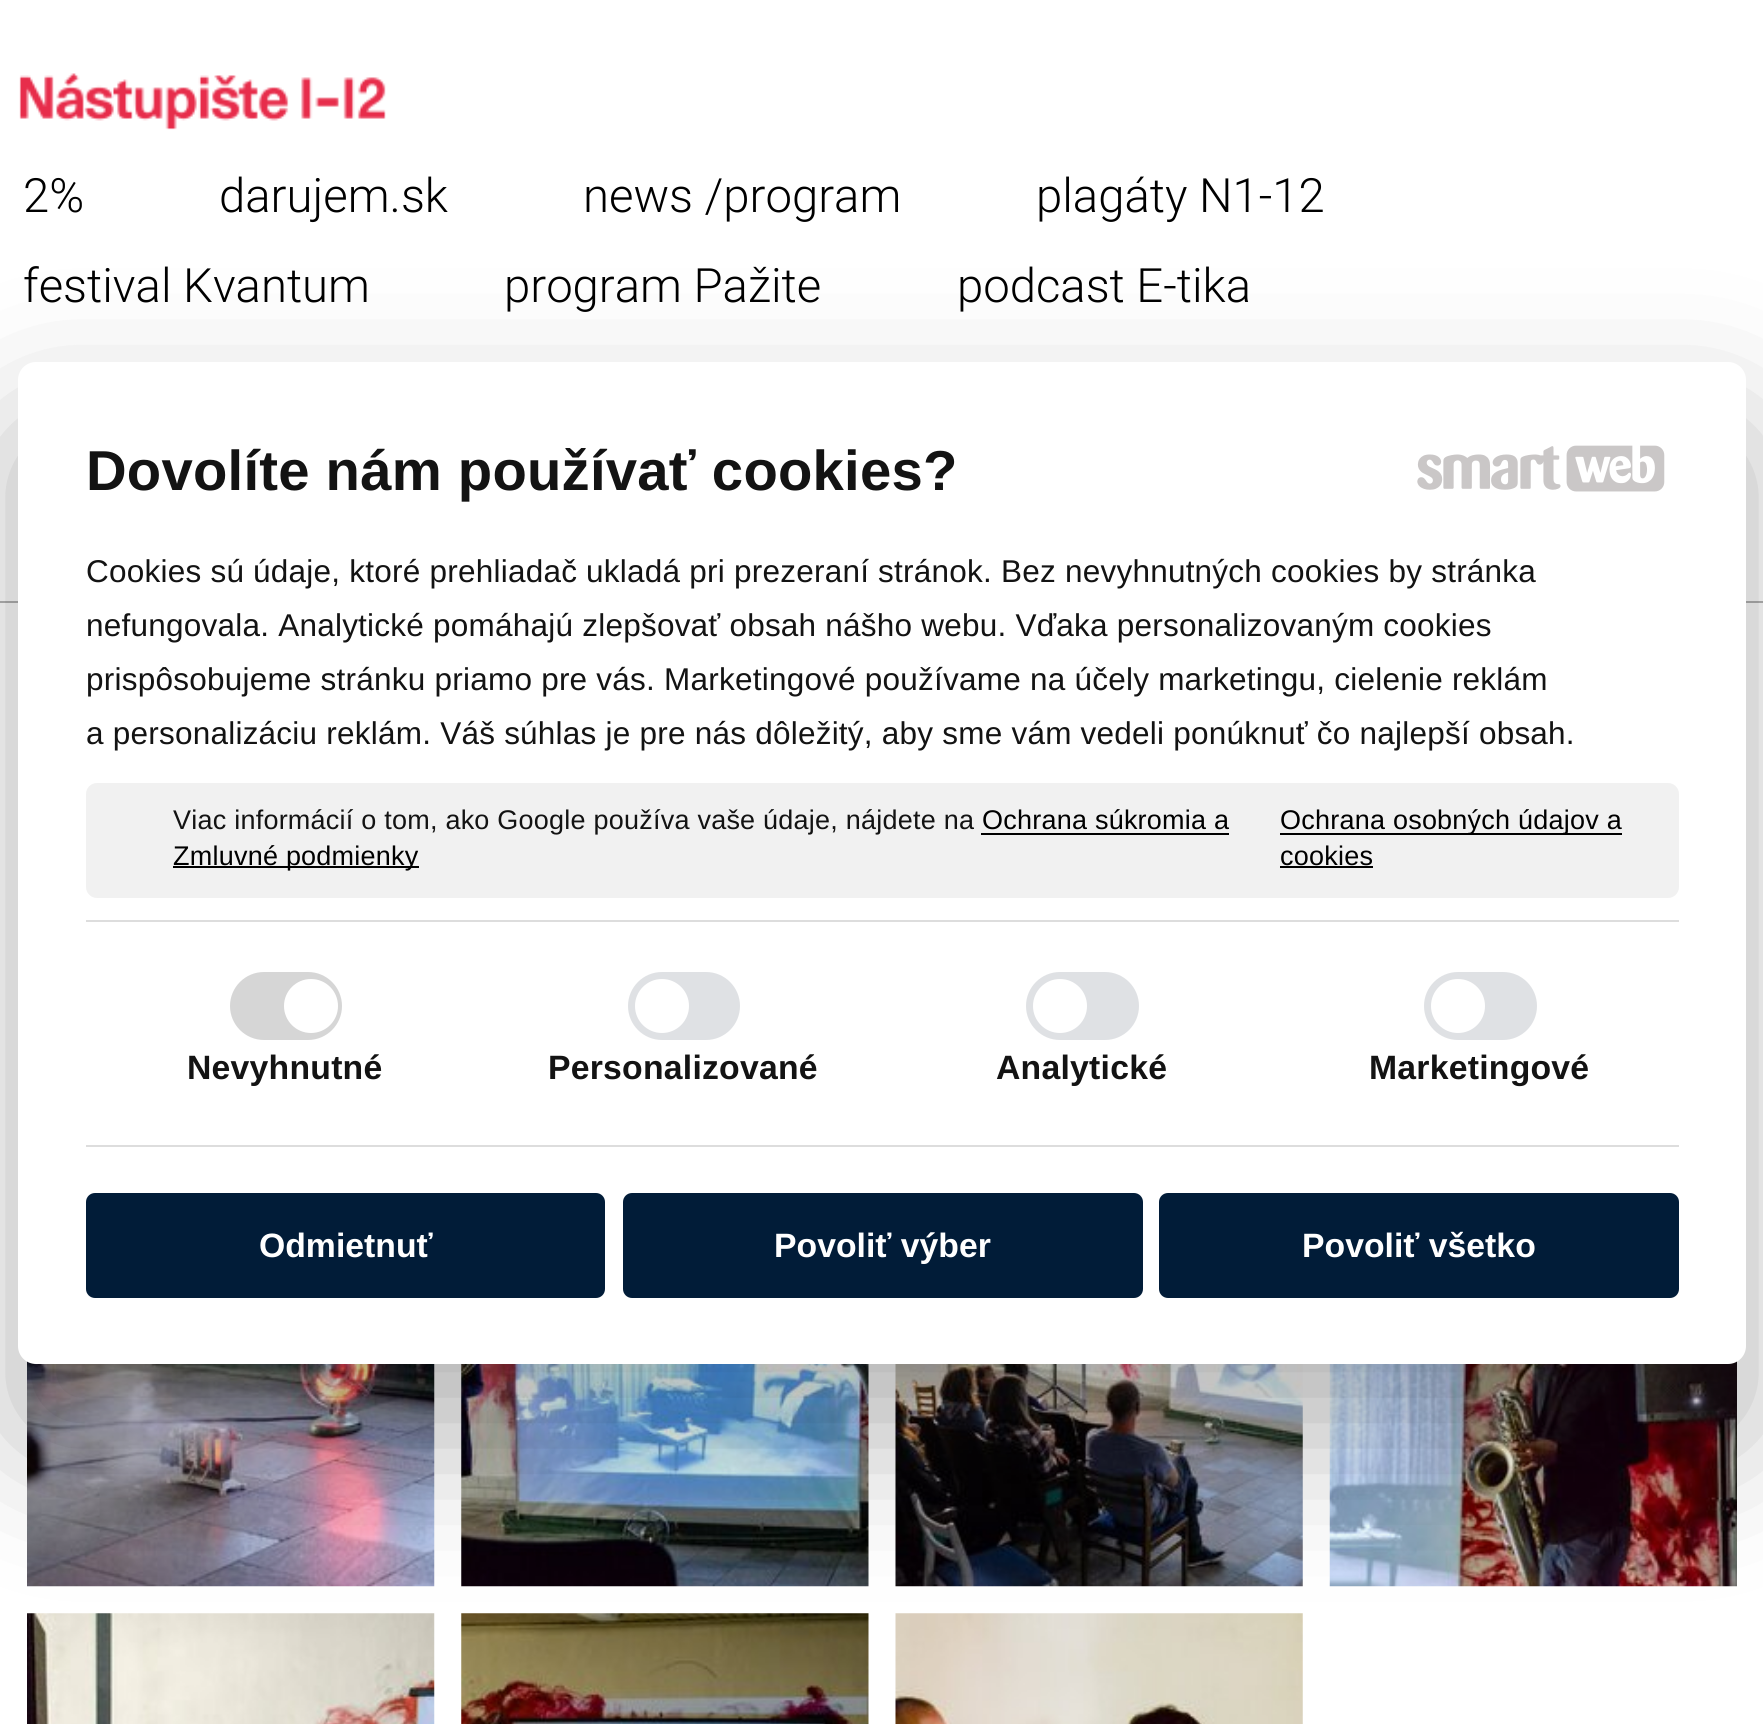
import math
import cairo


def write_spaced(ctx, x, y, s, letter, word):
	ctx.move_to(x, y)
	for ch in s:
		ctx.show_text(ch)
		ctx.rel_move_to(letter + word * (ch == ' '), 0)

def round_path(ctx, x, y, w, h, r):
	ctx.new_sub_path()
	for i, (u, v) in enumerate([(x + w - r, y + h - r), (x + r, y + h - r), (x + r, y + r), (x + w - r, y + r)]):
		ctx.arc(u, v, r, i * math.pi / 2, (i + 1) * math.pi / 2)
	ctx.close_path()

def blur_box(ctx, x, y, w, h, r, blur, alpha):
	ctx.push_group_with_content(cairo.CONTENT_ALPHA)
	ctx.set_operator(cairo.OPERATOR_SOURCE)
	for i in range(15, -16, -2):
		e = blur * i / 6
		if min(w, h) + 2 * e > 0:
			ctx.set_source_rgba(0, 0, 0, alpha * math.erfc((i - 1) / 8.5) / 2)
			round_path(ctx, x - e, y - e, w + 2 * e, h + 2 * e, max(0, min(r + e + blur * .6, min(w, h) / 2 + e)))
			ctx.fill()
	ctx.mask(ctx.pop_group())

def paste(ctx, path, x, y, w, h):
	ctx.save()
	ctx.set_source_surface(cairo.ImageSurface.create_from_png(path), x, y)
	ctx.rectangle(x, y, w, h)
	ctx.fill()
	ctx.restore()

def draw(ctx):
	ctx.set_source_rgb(1, 1, 1)
	ctx.paint()
	ctx.set_source_rgb(0.702, 0.702, 0.702)
	ctx.rectangle(0, 601, 1763, 2)
	ctx.fill()
	paste(ctx, 'media/1.png', 19, 73, 367, 57)
	ctx.select_font_face('Roboto Light')
	ctx.set_font_size(47.25)
	ctx.set_source_rgb(0, 0, 0)
	for x, y, s in [
		(23, 212, '2%'),
		(219, 212, 'darujem.sk'),
		(583, 212, 'news /program'),
		(1036, 212, 'plagáty N1-12'),
		(23, 302, 'festival Kvantum'),
		(504, 302, 'program Pažite'),
		(957, 302, 'podcast E-tika'),
	]:
		ctx.move_to(x, y)
		ctx.show_text(s)
	paste(ctx, 'media/4.png', 27, 1361, 408, 226)
	paste(ctx, 'media/5.png', 461, 1364, 408, 223)
	paste(ctx, 'media/6.png', 895, 1364, 408, 223)
	paste(ctx, 'media/7.png', 1329, 1361, 408, 226)
	paste(ctx, 'media/8.png', 27, 1613, 408, 111)
	paste(ctx, 'media/9.png', 461, 1613, 408, 111)
	paste(ctx, 'media/10.png', 895, 1613, 408, 111)
	ctx.set_source_rgb(0, 0, 0)
	blur_box(ctx, 18, 434, 1728, 1002, 18, 76.5, 0.3)
	ctx.set_source_rgb(1, 1, 1)
	round_path(ctx, 18, 362, 1728, 1002, 18)
	ctx.fill()
	ctx.select_font_face('Liberation Sans', cairo.FONT_SLANT_NORMAL, cairo.FONT_WEIGHT_BOLD)
	ctx.set_font_size(56.25)
	ctx.set_source_rgb(0.078, 0.078, 0.078)
	write_spaced(ctx, 86, 490, 'Dovolíte nám používať cookies?', 0.23, 0)
	paste(ctx, 'media/2.png', 1417, 446, 144, 44)
	paste(ctx, 'media/3.png', 1566, 445, 99, 47)
	ctx.select_font_face('Liberation Sans')
	ctx.set_font_size(31.5)
	for x, y, s in [
		(86, 582, 'Cookies sú údaje, ktoré prehliadač ukladá pri prezeraní stránok. Bez nevyhnutných cookies by stránka'),
		(86, 636, 'nefungovala. Analytické pomáhajú zlepšovať obsah nášho webu. Vďaka personalizovaným cookies'),
		(86, 690, 'prispôsobujeme stránku priamo pre vás. Marketingové používame na účely marketingu, cielenie reklám'),
		(86, 744, 'a personalizáciu reklám. Váš súhlas je pre nás dôležitý, aby sme vám vedeli ponúknuť čo najlepší obsah.'),
	]:
		write_spaced(ctx, x, y, s, 0.23, 0)
	ctx.set_source_rgb(0.945, 0.945, 0.945)
	round_path(ctx, 86, 783, 1593, 115, 11)
	ctx.fill()
	ctx.set_font_size(27)
	ctx.set_source_rgb(0.078, 0.078, 0.078)
	write_spaced(ctx, 173, 829, 'Viac informácií o tom, ako Google používa vaše údaje, nájdete na', 0.23, 0)
	ctx.set_source_rgb(0, 0, 0)
	write_spaced(ctx, 982, 829, 'Ochrana súkromia a', 0.23, 0)
	ctx.rectangle(981, 833, 248, 2)
	ctx.fill()
	ctx.rectangle(173, 866, 246, 2)
	ctx.fill()
	write_spaced(ctx, 173, 865, 'Zmluvné podmienky', 0.23, 0)
	ctx.rectangle(1280, 833, 342, 2)
	ctx.fill()
	write_spaced(ctx, 1280, 829, 'Ochrana osobných údajov a', 0.23, 0)
	write_spaced(ctx, 1280, 865, 'cookies', 0.23, 0)
	ctx.rectangle(1280, 866, 93, 2)
	ctx.fill()
	ctx.set_source_rgb(0.867, 0.867, 0.867)
	ctx.rectangle(86, 920, 1593, 2)
	ctx.rectangle(86, 1145, 1593, 2)
	ctx.fill()
	ctx.set_source_rgb(0.839, 0.839, 0.839)
	round_path(ctx, 230, 972, 112, 68, 34)
	ctx.fill()
	ctx.set_source_rgb(1, 1, 1)
	ctx.arc(311, 1006, 27, 0, 2 * math.pi)
	ctx.fill()
	ctx.select_font_face('Liberation Sans', cairo.FONT_SLANT_NORMAL, cairo.FONT_WEIGHT_BOLD)
	ctx.set_font_size(33.75)
	ctx.set_source_rgb(0.078, 0.078, 0.078)
	write_spaced(ctx, 187, 1079, 'Nevyhnutné', 0.23, 0)
	ctx.set_source_rgb(0.875, 0.882, 0.894)
	round_path(ctx, 628, 972, 112, 68, 34)
	ctx.fill()
	ctx.set_source_rgb(1, 1, 1)
	ctx.arc(662, 1006, 27, 0, 2 * math.pi)
	ctx.fill()
	ctx.set_source_rgb(0.078, 0.078, 0.078)
	write_spaced(ctx, 548, 1079, 'Personalizované', 0.23, 0)
	ctx.set_source_rgb(0.875, 0.882, 0.894)
	round_path(ctx, 1026, 972, 113, 68, 34)
	ctx.fill()
	ctx.set_source_rgb(1, 1, 1)
	ctx.arc(1060, 1006, 27, 0, 2 * math.pi)
	ctx.fill()
	ctx.set_source_rgb(0.078, 0.078, 0.078)
	write_spaced(ctx, 996, 1079, 'Analytické', 0.23, 0)
	ctx.set_source_rgb(0.875, 0.882, 0.894)
	round_path(ctx, 1424, 972, 113, 68, 34)
	ctx.fill()
	ctx.set_source_rgb(1, 1, 1)
	ctx.arc(1458, 1006, 27, 0, 2 * math.pi)
	ctx.fill()
	ctx.set_source_rgb(0.078, 0.078, 0.078)
	write_spaced(ctx, 1369, 1079, 'Marketingové', 0.23, 0)
	ctx.set_source_rgb(0.004, 0.11, 0.22)
	round_path(ctx, 86, 1193, 519, 105, 9)
	ctx.fill()
	ctx.set_source_rgb(1, 1, 1)
	ctx.move_to(259, 1257)
	ctx.show_text('Odmietnuť')
	ctx.set_source_rgb(0.004, 0.11, 0.22)
	round_path(ctx, 623, 1193, 520, 105, 9)
	ctx.fill()
	ctx.set_source_rgb(1, 1, 1)
	ctx.move_to(774, 1257)
	ctx.show_text('Povoliť výber')
	ctx.set_source_rgb(0.004, 0.11, 0.22)
	round_path(ctx, 1159, 1193, 520, 105, 9)
	ctx.fill()
	ctx.set_source_rgb(1, 1, 1)
	ctx.move_to(1302, 1257)
	ctx.show_text('Povoliť všetko')


surface = cairo.ImageSurface(cairo.FORMAT_RGB24, 1763, 1724)
ctx = cairo.Context(surface)
options = cairo.FontOptions()
options.set_hint_metrics(cairo.HINT_METRICS_OFF)
options.set_hint_style(cairo.HINT_STYLE_NONE)
ctx.set_font_options(options)
ctx.set_miter_limit(4)
draw(ctx)
surface.write_to_png('image.png')
